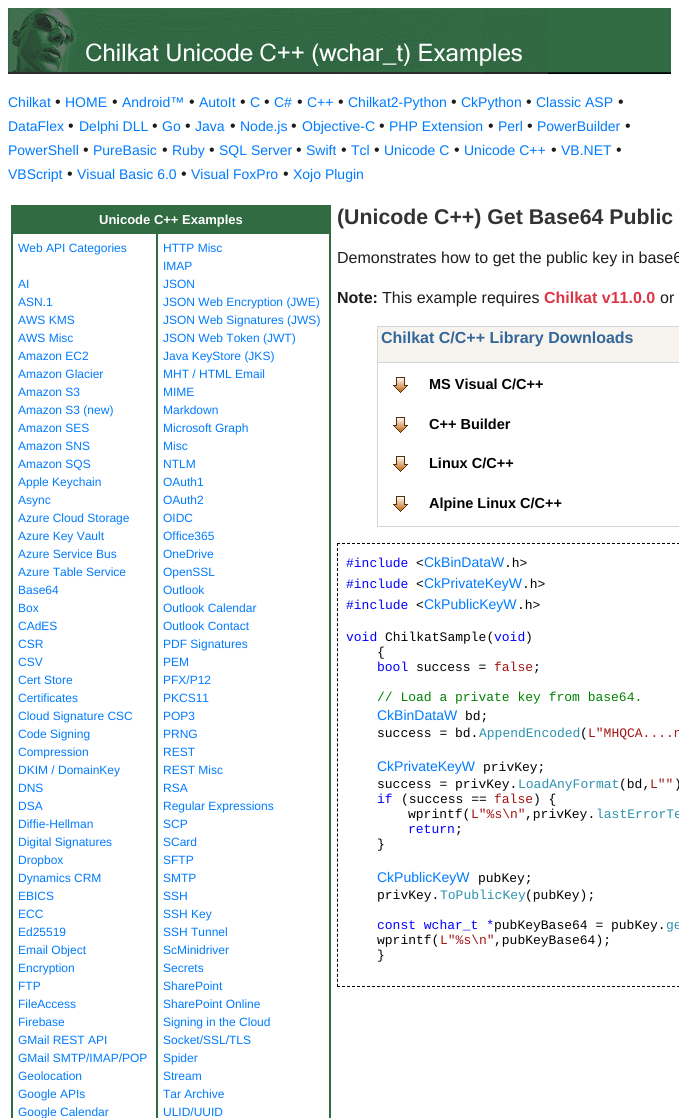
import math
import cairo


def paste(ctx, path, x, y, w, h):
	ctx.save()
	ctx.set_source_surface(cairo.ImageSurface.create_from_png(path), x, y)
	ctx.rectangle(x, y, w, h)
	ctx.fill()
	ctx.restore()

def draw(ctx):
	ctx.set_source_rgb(1, 1, 1)
	ctx.paint()
	paste(ctx, 'media/1.png', 548, 8, 123, 66)
	paste(ctx, 'media/2.png', 8, 8, 540, 66)
	ctx.select_font_face('Liberation Sans')
	ctx.set_font_size(14)
	ctx.set_source_rgb(0, 0.482, 1)
	ctx.move_to(8, 107)
	ctx.show_text('Chilkat')
	ctx.set_font_size(16)
	ctx.set_source_rgb(0.11, 0.11, 0.11)
	ctx.move_to(55, 107)
	ctx.show_text('•')
	ctx.set_font_size(14)
	ctx.set_source_rgb(0, 0.482, 1)
	ctx.move_to(65, 107)
	ctx.show_text('HOME')
	ctx.set_font_size(16)
	ctx.set_source_rgb(0.11, 0.11, 0.11)
	ctx.move_to(112, 107)
	ctx.show_text('•')
	ctx.set_font_size(14)
	ctx.set_source_rgb(0, 0.482, 1)
	ctx.move_to(122, 107)
	ctx.show_text('Android™')
	ctx.set_font_size(16)
	ctx.set_source_rgb(0.11, 0.11, 0.11)
	ctx.move_to(189, 107)
	ctx.show_text('•')
	ctx.set_font_size(14)
	ctx.set_source_rgb(0, 0.482, 1)
	ctx.move_to(199, 107)
	ctx.show_text('AutoIt')
	ctx.set_font_size(16)
	ctx.set_source_rgb(0.11, 0.11, 0.11)
	ctx.move_to(240, 107)
	ctx.show_text('•')
	ctx.set_font_size(14)
	ctx.set_source_rgb(0, 0.482, 1)
	ctx.move_to(250, 107)
	ctx.show_text('C')
	ctx.set_font_size(16)
	ctx.set_source_rgb(0.11, 0.11, 0.11)
	ctx.move_to(264, 107)
	ctx.show_text('•')
	ctx.set_font_size(14)
	ctx.set_source_rgb(0, 0.482, 1)
	ctx.move_to(274, 107)
	ctx.show_text('C#')
	ctx.set_font_size(16)
	ctx.set_source_rgb(0.11, 0.11, 0.11)
	ctx.move_to(297, 107)
	ctx.show_text('•')
	ctx.set_font_size(14)
	ctx.set_source_rgb(0, 0.482, 1)
	ctx.move_to(307, 107)
	ctx.show_text('C++')
	ctx.set_font_size(16)
	ctx.set_source_rgb(0.11, 0.11, 0.11)
	ctx.move_to(338, 107)
	ctx.show_text('•')
	ctx.set_font_size(14)
	ctx.set_source_rgb(0, 0.482, 1)
	ctx.move_to(348, 107)
	ctx.show_text('Chilkat2-Python')
	ctx.set_font_size(16)
	ctx.set_source_rgb(0.11, 0.11, 0.11)
	ctx.move_to(451, 107)
	ctx.show_text('•')
	ctx.set_font_size(14)
	ctx.set_source_rgb(0, 0.482, 1)
	ctx.move_to(461, 107)
	ctx.show_text('CkPython')
	ctx.set_font_size(16)
	ctx.set_source_rgb(0.11, 0.11, 0.11)
	ctx.move_to(526, 107)
	ctx.show_text('•')
	ctx.set_font_size(14)
	ctx.set_source_rgb(0, 0.482, 1)
	ctx.move_to(536, 107)
	ctx.show_text('Classic ASP')
	ctx.set_font_size(16)
	ctx.set_source_rgb(0.11, 0.11, 0.11)
	ctx.move_to(618, 107)
	ctx.show_text('•')
	ctx.set_font_size(14)
	ctx.set_source_rgb(0, 0.482, 1)
	ctx.move_to(8, 131)
	ctx.show_text('DataFlex')
	ctx.set_font_size(16)
	ctx.set_source_rgb(0.11, 0.11, 0.11)
	ctx.move_to(68, 131)
	ctx.show_text('•')
	ctx.set_font_size(14)
	ctx.set_source_rgb(0, 0.482, 1)
	ctx.move_to(79, 131)
	ctx.show_text('Delphi DLL')
	ctx.set_font_size(16)
	ctx.set_source_rgb(0.11, 0.11, 0.11)
	ctx.move_to(152, 131)
	ctx.show_text('•')
	ctx.set_font_size(14)
	ctx.set_source_rgb(0, 0.482, 1)
	ctx.move_to(162, 131)
	ctx.show_text('Go')
	ctx.set_font_size(16)
	ctx.set_source_rgb(0.11, 0.11, 0.11)
	ctx.move_to(185, 131)
	ctx.show_text('•')
	ctx.set_font_size(14)
	ctx.set_source_rgb(0, 0.482, 1)
	ctx.move_to(195, 131)
	ctx.show_text('Java')
	ctx.set_font_size(16)
	ctx.set_source_rgb(0.11, 0.11, 0.11)
	ctx.move_to(230, 131)
	ctx.show_text('•')
	ctx.set_font_size(14)
	ctx.set_source_rgb(0, 0.482, 1)
	ctx.move_to(240, 131)
	ctx.show_text('Node.js')
	ctx.set_font_size(16)
	ctx.set_source_rgb(0.11, 0.11, 0.11)
	ctx.move_to(291, 131)
	ctx.show_text('•')
	ctx.set_font_size(14)
	ctx.set_source_rgb(0, 0.482, 1)
	ctx.move_to(302, 131)
	ctx.show_text('Objective-C')
	ctx.set_font_size(16)
	ctx.set_source_rgb(0.11, 0.11, 0.11)
	ctx.move_to(379, 131)
	ctx.show_text('•')
	ctx.set_font_size(14)
	ctx.set_source_rgb(0, 0.482, 1)
	ctx.move_to(389, 131)
	ctx.show_text('PHP Extension')
	ctx.set_font_size(16)
	ctx.set_source_rgb(0.11, 0.11, 0.11)
	ctx.move_to(488, 131)
	ctx.show_text('•')
	ctx.set_font_size(14)
	ctx.set_source_rgb(0, 0.482, 1)
	ctx.move_to(498, 131)
	ctx.show_text('Perl')
	ctx.set_font_size(16)
	ctx.set_source_rgb(0.11, 0.11, 0.11)
	ctx.move_to(527, 131)
	ctx.show_text('•')
	ctx.set_font_size(14)
	ctx.set_source_rgb(0, 0.482, 1)
	ctx.move_to(537, 131)
	ctx.show_text('PowerBuilder')
	ctx.set_font_size(16)
	ctx.set_source_rgb(0.11, 0.11, 0.11)
	ctx.move_to(625, 131)
	ctx.show_text('•')
	ctx.set_font_size(14)
	ctx.set_source_rgb(0, 0.482, 1)
	ctx.move_to(8, 155)
	ctx.show_text('PowerShell')
	ctx.set_font_size(16)
	ctx.set_source_rgb(0.11, 0.11, 0.11)
	ctx.move_to(83, 155)
	ctx.show_text('•')
	ctx.set_font_size(14)
	ctx.set_source_rgb(0, 0.482, 1)
	ctx.move_to(93, 155)
	ctx.show_text('PureBasic')
	ctx.set_font_size(16)
	ctx.set_source_rgb(0.11, 0.11, 0.11)
	ctx.move_to(162, 155)
	ctx.show_text('•')
	ctx.set_font_size(14)
	ctx.set_source_rgb(0, 0.482, 1)
	ctx.move_to(172, 155)
	ctx.show_text('Ruby')
	ctx.set_font_size(16)
	ctx.set_source_rgb(0.11, 0.11, 0.11)
	ctx.move_to(209, 155)
	ctx.show_text('•')
	ctx.set_font_size(14)
	ctx.set_source_rgb(0, 0.482, 1)
	ctx.move_to(219, 155)
	ctx.show_text('SQL Server')
	ctx.set_font_size(16)
	ctx.set_source_rgb(0.11, 0.11, 0.11)
	ctx.move_to(296, 155)
	ctx.show_text('•')
	ctx.set_font_size(14)
	ctx.set_source_rgb(0, 0.482, 1)
	ctx.move_to(306, 155)
	ctx.show_text('Swift')
	ctx.set_font_size(16)
	ctx.set_source_rgb(0.11, 0.11, 0.11)
	ctx.move_to(341, 155)
	ctx.show_text('•')
	ctx.set_font_size(14)
	ctx.set_source_rgb(0, 0.482, 1)
	ctx.move_to(351, 155)
	ctx.show_text('Tcl')
	ctx.set_font_size(16)
	ctx.set_source_rgb(0.11, 0.11, 0.11)
	ctx.move_to(374, 155)
	ctx.show_text('•')
	ctx.set_font_size(14)
	ctx.set_source_rgb(0, 0.482, 1)
	ctx.move_to(384, 155)
	ctx.show_text('Unicode C')
	ctx.set_font_size(16)
	ctx.set_source_rgb(0.11, 0.11, 0.11)
	ctx.move_to(454, 155)
	ctx.show_text('•')
	ctx.set_font_size(14)
	ctx.set_source_rgb(0, 0.482, 1)
	ctx.move_to(464, 155)
	ctx.show_text('Unicode C++')
	ctx.set_font_size(16)
	ctx.set_source_rgb(0.11, 0.11, 0.11)
	ctx.move_to(551, 155)
	ctx.show_text('•')
	ctx.set_font_size(14)
	ctx.set_source_rgb(0, 0.482, 1)
	ctx.move_to(561, 155)
	ctx.show_text('VB.NET')
	ctx.set_font_size(16)
	ctx.set_source_rgb(0.11, 0.11, 0.11)
	ctx.move_to(616, 155)
	ctx.show_text('•')
	ctx.set_font_size(14)
	ctx.set_source_rgb(0, 0.482, 1)
	ctx.move_to(8, 179)
	ctx.show_text('VBScript')
	ctx.set_font_size(16)
	ctx.set_source_rgb(0.11, 0.11, 0.11)
	ctx.move_to(67, 179)
	ctx.show_text('•')
	ctx.set_font_size(14)
	ctx.set_source_rgb(0, 0.482, 1)
	ctx.move_to(77, 179)
	ctx.show_text('Visual Basic 6.0')
	ctx.set_font_size(16)
	ctx.set_source_rgb(0.11, 0.11, 0.11)
	ctx.move_to(181, 179)
	ctx.show_text('•')
	ctx.set_font_size(14)
	ctx.set_source_rgb(0, 0.482, 1)
	ctx.move_to(191, 179)
	ctx.show_text('Visual FoxPro')
	ctx.set_font_size(16)
	ctx.set_source_rgb(0.11, 0.11, 0.11)
	ctx.move_to(283, 179)
	ctx.show_text('•')
	ctx.set_font_size(14)
	ctx.set_source_rgb(0, 0.482, 1)
	ctx.move_to(293, 179)
	ctx.show_text('Xojo Plugin')
	ctx.rectangle(11.5, 205.5, 319, 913)
	ctx.set_source_rgb(0.192, 0.42, 0.259)
	ctx.set_line_width(1)
	ctx.stroke()
	ctx.rectangle(12, 206, 318, 27)
	ctx.fill()
	ctx.select_font_face('Liberation Sans', cairo.FONT_SLANT_NORMAL, cairo.FONT_WEIGHT_BOLD)
	ctx.set_font_size(13)
	ctx.set_source_rgb(1, 1, 1)
	ctx.move_to(99, 224)
	ctx.show_text('Unicode C++ Examples')
	ctx.rectangle(12.5, 233.5, 144, 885)
	ctx.set_source_rgb(0.192, 0.42, 0.259)
	ctx.stroke()
	ctx.select_font_face('Liberation Sans')
	ctx.set_font_size(12)
	ctx.set_source_rgb(0, 0.482, 1)
	for x, y, s in [
		(18, 252, 'Web API Categories'),
		(18, 288, 'AI'),
		(18, 306, 'ASN.1'),
		(18, 324, 'AWS KMS'),
		(18, 342, 'AWS Misc'),
		(18, 360, 'Amazon EC2'),
		(18, 378, 'Amazon Glacier'),
		(18, 396, 'Amazon S3'),
		(18, 414, 'Amazon S3 (new)'),
		(18, 432, 'Amazon SES'),
		(18, 450, 'Amazon SNS'),
		(18, 468, 'Amazon SQS'),
		(18, 486, 'Apple Keychain'),
		(18, 504, 'Async'),
		(18, 522, 'Azure Cloud Storage'),
		(18, 540, 'Azure Key Vault'),
		(18, 558, 'Azure Service Bus'),
		(18, 576, 'Azure Table Service'),
		(18, 594, 'Base64'),
		(18, 612, 'Box'),
		(18, 630, 'CAdES'),
		(18, 648, 'CSR'),
		(18, 666, 'CSV'),
		(18, 684, 'Cert Store'),
		(18, 702, 'Certificates'),
		(18, 720, 'Cloud Signature CSC'),
		(18, 738, 'Code Signing'),
		(18, 756, 'Compression'),
		(18, 774, 'DKIM / DomainKey'),
		(18, 792, 'DNS'),
		(18, 810, 'DSA'),
		(18, 828, 'Diffie-Hellman'),
		(18, 846, 'Digital Signatures'),
		(18, 864, 'Dropbox'),
		(18, 882, 'Dynamics CRM'),
		(18, 900, 'EBICS'),
		(18, 918, 'ECC'),
		(18, 936, 'Ed25519'),
		(18, 954, 'Email Object'),
		(18, 972, 'Encryption'),
		(18, 990, 'FTP'),
		(18, 1008, 'FileAccess'),
		(18, 1026, 'Firebase'),
		(18, 1044, 'GMail REST API'),
		(18, 1062, 'GMail SMTP/IMAP/POP'),
		(18, 1080, 'Geolocation'),
		(18, 1098, 'Google APIs'),
		(18, 1116, 'Google Calendar'),
	]:
		ctx.move_to(x, y)
		ctx.show_text(s)
	ctx.rectangle(157.5, 233.5, 172, 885)
	ctx.set_source_rgb(0.192, 0.42, 0.259)
	ctx.stroke()
	ctx.set_source_rgb(0, 0.482, 1)
	for x, y, s in [
		(163, 252, 'HTTP Misc'),
		(163, 270, 'IMAP'),
		(163, 288, 'JSON'),
		(163, 306, 'JSON Web Encryption (JWE)'),
		(163, 324, 'JSON Web Signatures (JWS)'),
		(163, 342, 'JSON Web Token (JWT)'),
		(163, 360, 'Java KeyStore (JKS)'),
		(163, 378, 'MHT / HTML Email'),
		(163, 396, 'MIME'),
		(163, 414, 'Markdown'),
		(163, 432, 'Microsoft Graph'),
		(163, 450, 'Misc'),
		(163, 468, 'NTLM'),
		(163, 486, 'OAuth1'),
		(163, 504, 'OAuth2'),
		(163, 522, 'OIDC'),
		(163, 540, 'Office365'),
		(163, 558, 'OneDrive'),
		(163, 576, 'OpenSSL'),
		(163, 594, 'Outlook'),
		(163, 612, 'Outlook Calendar'),
		(163, 630, 'Outlook Contact'),
		(163, 648, 'PDF Signatures'),
		(163, 666, 'PEM'),
		(163, 684, 'PFX/P12'),
		(163, 702, 'PKCS11'),
		(163, 720, 'POP3'),
		(163, 738, 'PRNG'),
		(163, 756, 'REST'),
		(163, 774, 'REST Misc'),
		(163, 792, 'RSA'),
		(163, 810, 'Regular Expressions'),
		(163, 828, 'SCP'),
		(163, 846, 'SCard'),
		(163, 864, 'SFTP'),
		(163, 882, 'SMTP'),
		(163, 900, 'SSH'),
		(163, 918, 'SSH Key'),
		(163, 936, 'SSH Tunnel'),
		(163, 954, 'ScMinidriver'),
		(163, 972, 'Secrets'),
		(163, 990, 'SharePoint'),
		(163, 1008, 'SharePoint Online'),
		(163, 1026, 'Signing in the Cloud'),
		(163, 1044, 'Socket/SSL/TLS'),
		(163, 1062, 'Spider'),
		(163, 1080, 'Stream'),
		(163, 1098, 'Tar Archive'),
		(163, 1116, 'ULID/UUID'),
	]:
		ctx.move_to(x, y)
		ctx.show_text(s)
	ctx.select_font_face('Liberation Sans', cairo.FONT_SLANT_NORMAL, cairo.FONT_WEIGHT_BOLD)
	ctx.set_font_size(21.3)
	ctx.set_source_rgb(0.2, 0.2, 0.2)
	ctx.move_to(337, 224)
	ctx.show_text('(Unicode C++) Get Base64 Public')
	ctx.select_font_face('Liberation Sans')
	ctx.set_font_size(16)
	ctx.set_source_rgb(0.11, 0.11, 0.11)
	ctx.move_to(337, 263)
	ctx.show_text('Demonstrates how to get the public key in base6')
	ctx.select_font_face('Liberation Sans', cairo.FONT_SLANT_NORMAL, cairo.FONT_WEIGHT_BOLD)
	ctx.move_to(337, 303)
	ctx.show_text('Note:')
	ctx.select_font_face('Liberation Sans')
	ctx.move_to(382, 303)
	ctx.show_text('This example requires')
	ctx.select_font_face('Liberation Sans', cairo.FONT_SLANT_NORMAL, cairo.FONT_WEIGHT_BOLD)
	ctx.set_source_rgb(0.863, 0.208, 0.271)
	ctx.move_to(544, 303)
	ctx.show_text('Chilkat v11.0.0')
	ctx.select_font_face('Liberation Sans')
	ctx.set_source_rgb(0.11, 0.11, 0.11)
	ctx.move_to(660, 303)
	ctx.show_text('or')
	ctx.set_source_rgb(0.965, 0.957, 0.941)
	ctx.rectangle(378, 327, 301, 35)
	ctx.fill()
	ctx.set_source_rgb(0.831, 0.831, 0.831)
	ctx.rectangle(377, 326, 302, 1)
	ctx.rectangle(377, 362, 302, 1)
	ctx.rectangle(377, 526, 302, 1)
	ctx.rectangle(377, 362, 1, 165)
	ctx.rectangle(377, 326, 1, 37)
	ctx.fill()
	ctx.select_font_face('Liberation Sans', cairo.FONT_SLANT_NORMAL, cairo.FONT_WEIGHT_BOLD)
	ctx.set_source_rgb(0.2, 0.4, 0.6)
	ctx.move_to(381, 343)
	ctx.show_text('Chilkat C/C++ Library Downloads')
	paste(ctx, 'media/3.png', 393, 377, 15, 16)
	ctx.set_font_size(14.5)
	ctx.set_source_rgb(0, 0, 0)
	ctx.move_to(429, 389)
	ctx.show_text('MS Visual C/C++')
	paste(ctx, 'media/3.png', 393, 417, 15, 16)
	ctx.move_to(429, 429)
	ctx.show_text('C++ Builder')
	paste(ctx, 'media/3.png', 393, 456, 15, 16)
	ctx.move_to(429, 468)
	ctx.show_text('Linux C/C++')
	paste(ctx, 'media/3.png', 393, 496, 15, 16)
	ctx.move_to(429, 508)
	ctx.show_text('Alpine Linux C/C++')
	ctx.new_path()
	ctx.move_to(337, 543.5)
	ctx.line_to(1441, 543.5)
	ctx.set_dash([3, 2])
	ctx.stroke()
	ctx.new_path()
	ctx.move_to(337, 986.5)
	ctx.line_to(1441, 986.5)
	ctx.stroke()
	ctx.new_path()
	ctx.move_to(337.5, 543)
	ctx.line_to(337.5, 987)
	ctx.set_dash([3, 2.01])
	ctx.stroke()
	ctx.select_font_face('Liberation Mono')
	ctx.set_font_size(13)
	ctx.set_source_rgb(0, 0, 1)
	ctx.move_to(346, 567)
	ctx.show_text('#include')
	ctx.set_source_rgb(0, 0, 0)
	ctx.move_to(416, 567)
	ctx.show_text('<')
	ctx.select_font_face('Liberation Sans')
	ctx.set_font_size(14)
	ctx.set_source_rgb(0, 0.482, 1)
	ctx.move_to(424, 567)
	ctx.show_text('CkBinDataW')
	ctx.select_font_face('Liberation Mono')
	ctx.set_font_size(13)
	ctx.set_source_rgb(0, 0, 0)
	ctx.move_to(504, 567)
	ctx.show_text('.h>')
	ctx.set_source_rgb(0, 0, 1)
	ctx.move_to(346, 588)
	ctx.show_text('#include')
	ctx.set_source_rgb(0, 0, 0)
	ctx.move_to(416, 588)
	ctx.show_text('<')
	ctx.select_font_face('Liberation Sans')
	ctx.set_font_size(14)
	ctx.set_source_rgb(0, 0.482, 1)
	ctx.move_to(424, 588)
	ctx.show_text('CkPrivateKeyW')
	ctx.select_font_face('Liberation Mono')
	ctx.set_font_size(13)
	ctx.set_source_rgb(0, 0, 0)
	ctx.move_to(522, 588)
	ctx.show_text('.h>')
	ctx.set_source_rgb(0, 0, 1)
	ctx.move_to(346, 609)
	ctx.show_text('#include')
	ctx.set_source_rgb(0, 0, 0)
	ctx.move_to(416, 609)
	ctx.show_text('<')
	ctx.select_font_face('Liberation Sans')
	ctx.set_font_size(14)
	ctx.set_source_rgb(0, 0.482, 1)
	ctx.move_to(424, 609)
	ctx.show_text('CkPublicKeyW')
	ctx.select_font_face('Liberation Mono')
	ctx.set_font_size(13)
	ctx.set_source_rgb(0, 0, 0)
	ctx.move_to(517, 609)
	ctx.show_text('.h>')
	ctx.set_source_rgb(0, 0, 1)
	ctx.move_to(346, 641)
	ctx.show_text('void')
	ctx.set_source_rgb(0, 0, 0)
	ctx.move_to(385, 641)
	ctx.show_text('ChilkatSample(')
	ctx.set_source_rgb(0, 0, 1)
	ctx.move_to(494, 641)
	ctx.show_text('void')
	ctx.set_source_rgb(0, 0, 0)
	ctx.move_to(525, 641)
	ctx.show_text(')')
	ctx.move_to(377, 656)
	ctx.show_text('{')
	ctx.set_source_rgb(0, 0, 1)
	ctx.move_to(377, 671)
	ctx.show_text('bool')
	ctx.set_source_rgb(0, 0, 0)
	ctx.move_to(416, 671)
	ctx.show_text('success =')
	ctx.set_source_rgb(0.639, 0.082, 0.082)
	ctx.move_to(494, 671)
	ctx.show_text('false')
	ctx.set_source_rgb(0, 0, 0)
	ctx.move_to(533, 671)
	ctx.show_text(';')
	ctx.set_source_rgb(0, 0.502, 0)
	ctx.move_to(377, 701)
	ctx.show_text('// Load a private key from base64.')
	ctx.select_font_face('Liberation Sans')
	ctx.set_font_size(14)
	ctx.set_source_rgb(0, 0.482, 1)
	ctx.move_to(377, 720)
	ctx.show_text('CkBinDataW')
	ctx.select_font_face('Liberation Mono')
	ctx.set_font_size(13)
	ctx.set_source_rgb(0, 0, 0)
	ctx.move_to(465, 720)
	ctx.show_text('bd;')
	ctx.move_to(377, 737)
	ctx.show_text('success = bd.')
	ctx.set_source_rgb(0.169, 0.569, 0.686)
	ctx.move_to(479, 737)
	ctx.show_text('AppendEncoded')
	ctx.set_source_rgb(0, 0, 0)
	ctx.move_to(580, 737)
	ctx.show_text('(')
	ctx.set_source_rgb(0.639, 0.082, 0.082)
	ctx.move_to(588, 737)
	ctx.show_text('L"MHQCA....n')
	ctx.select_font_face('Liberation Sans')
	ctx.set_font_size(14)
	ctx.set_source_rgb(0, 0.482, 1)
	ctx.move_to(377, 771)
	ctx.show_text('CkPrivateKeyW')
	ctx.select_font_face('Liberation Mono')
	ctx.set_font_size(13)
	ctx.set_source_rgb(0, 0, 0)
	ctx.move_to(483, 771)
	ctx.show_text('privKey;')
	ctx.move_to(377, 788)
	ctx.show_text('success = privKey.')
	ctx.set_source_rgb(0.169, 0.569, 0.686)
	ctx.move_to(518, 788)
	ctx.show_text('LoadAnyFormat')
	ctx.set_source_rgb(0, 0, 0)
	ctx.move_to(619, 788)
	ctx.show_text('(bd,')
	ctx.set_source_rgb(0.639, 0.082, 0.082)
	ctx.move_to(650, 788)
	ctx.show_text('L""')
	ctx.set_source_rgb(0, 0, 0)
	ctx.move_to(674, 788)
	ctx.show_text(')')
	ctx.set_source_rgb(0, 0, 1)
	ctx.move_to(377, 803)
	ctx.show_text('if')
	ctx.set_source_rgb(0, 0, 0)
	ctx.move_to(401, 803)
	ctx.show_text('(success ==')
	ctx.set_source_rgb(0.639, 0.082, 0.082)
	ctx.move_to(494, 803)
	ctx.show_text('false')
	ctx.set_source_rgb(0, 0, 0)
	ctx.move_to(533, 803)
	ctx.show_text(') {')
	ctx.move_to(408, 818)
	ctx.show_text('wprintf(')
	ctx.set_source_rgb(0.639, 0.082, 0.082)
	ctx.move_to(471, 818)
	ctx.show_text('L"%s\\n"')
	ctx.set_source_rgb(0, 0, 0)
	ctx.move_to(525, 818)
	ctx.show_text(',privKey.')
	ctx.set_source_rgb(0.169, 0.569, 0.686)
	ctx.move_to(596, 818)
	ctx.show_text('lastErrorTe')
	ctx.set_source_rgb(0, 0, 1)
	ctx.move_to(408, 833)
	ctx.show_text('return')
	ctx.set_source_rgb(0, 0, 0)
	ctx.move_to(455, 833)
	ctx.show_text(';')
	ctx.move_to(377, 848)
	ctx.show_text('}')
	ctx.select_font_face('Liberation Sans')
	ctx.set_font_size(14)
	ctx.set_source_rgb(0, 0.482, 1)
	ctx.move_to(377, 882)
	ctx.show_text('CkPublicKeyW')
	ctx.select_font_face('Liberation Mono')
	ctx.set_font_size(13)
	ctx.set_source_rgb(0, 0, 0)
	ctx.move_to(478, 882)
	ctx.show_text('pubKey;')
	ctx.move_to(377, 899)
	ctx.show_text('privKey.')
	ctx.set_source_rgb(0.169, 0.569, 0.686)
	ctx.move_to(440, 899)
	ctx.show_text('ToPublicKey')
	ctx.set_source_rgb(0, 0, 0)
	ctx.move_to(525, 899)
	ctx.show_text('(pubKey);')
	ctx.set_source_rgb(0, 0, 1)
	ctx.move_to(377, 929)
	ctx.show_text('const wchar_t *')
	ctx.set_source_rgb(0, 0, 0)
	ctx.move_to(494, 929)
	ctx.show_text('pubKeyBase64 = pubKey.')
	ctx.set_source_rgb(0.169, 0.569, 0.686)
	ctx.move_to(666, 929)
	ctx.show_text('ge')
	ctx.set_source_rgb(0, 0, 0)
	ctx.move_to(377, 944)
	ctx.show_text('wprintf(')
	ctx.set_source_rgb(0.639, 0.082, 0.082)
	ctx.move_to(440, 944)
	ctx.show_text('L"%s\\n"')
	ctx.set_source_rgb(0, 0, 0)
	ctx.move_to(494, 944)
	ctx.show_text(',pubKeyBase64);')
	ctx.move_to(377, 959)
	ctx.show_text('}')


surface = cairo.ImageSurface(cairo.FORMAT_RGB24, 679, 1118)
ctx = cairo.Context(surface)
options = cairo.FontOptions()
options.set_hint_metrics(cairo.HINT_METRICS_OFF)
options.set_hint_style(cairo.HINT_STYLE_NONE)
ctx.set_font_options(options)
ctx.set_miter_limit(4)
draw(ctx)
surface.write_to_png('image.png')
